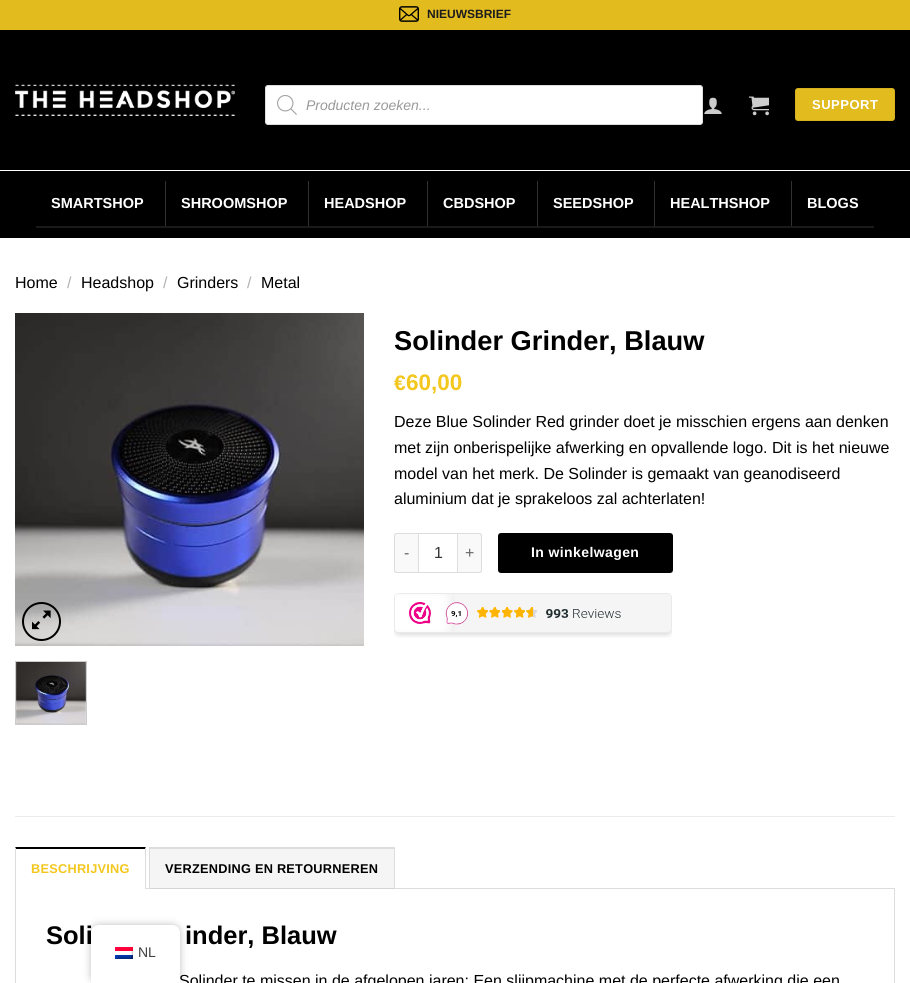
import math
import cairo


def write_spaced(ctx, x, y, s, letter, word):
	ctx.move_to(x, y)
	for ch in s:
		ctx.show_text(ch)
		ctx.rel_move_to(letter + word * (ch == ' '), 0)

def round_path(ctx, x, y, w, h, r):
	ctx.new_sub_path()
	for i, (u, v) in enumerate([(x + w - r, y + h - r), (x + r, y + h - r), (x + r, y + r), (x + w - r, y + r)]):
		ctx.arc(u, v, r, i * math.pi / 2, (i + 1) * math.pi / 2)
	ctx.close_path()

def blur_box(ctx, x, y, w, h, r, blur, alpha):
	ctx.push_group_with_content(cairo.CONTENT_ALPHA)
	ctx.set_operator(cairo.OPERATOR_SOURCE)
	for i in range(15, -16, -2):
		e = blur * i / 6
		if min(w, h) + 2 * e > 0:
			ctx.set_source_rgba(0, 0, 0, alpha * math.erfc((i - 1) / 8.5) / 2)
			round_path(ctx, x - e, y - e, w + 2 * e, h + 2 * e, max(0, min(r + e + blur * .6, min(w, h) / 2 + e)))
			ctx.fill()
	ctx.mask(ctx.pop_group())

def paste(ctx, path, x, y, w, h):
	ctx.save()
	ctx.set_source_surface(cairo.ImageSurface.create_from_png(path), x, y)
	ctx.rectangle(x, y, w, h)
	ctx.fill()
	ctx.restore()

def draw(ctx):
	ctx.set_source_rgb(1, 1, 1)
	ctx.paint()
	ctx.set_source_rgb(0.886, 0.733, 0.122)
	ctx.rectangle(0, 0, 910, 30)
	ctx.fill()
	paste(ctx, 'media/1.png', 399, 6, 20, 16)
	ctx.select_font_face('Liberation Sans', cairo.FONT_SLANT_NORMAL, cairo.FONT_WEIGHT_BOLD)
	ctx.set_font_size(12)
	ctx.set_source_rgb(0.11, 0.11, 0.11)
	ctx.move_to(427, 18)
	ctx.show_text('NIEUWSBRIEF')
	ctx.set_source_rgb(0, 0, 0)
	ctx.rectangle(0, 30, 910, 208)
	ctx.fill()
	paste(ctx, 'media/2.png', 15, 84, 220, 32)
	ctx.set_source_rgb(1, 1, 1)
	round_path(ctx, 265.5, 85.5, 437, 39, 2.5)
	ctx.fill_preserve()
	ctx.set_source_rgb(0.867, 0.867, 0.867)
	ctx.set_line_width(1)
	ctx.stroke()
	paste(ctx, 'media/3.png', 277, 95, 20, 20)
	ctx.select_font_face('Liberation Sans', cairo.FONT_SLANT_ITALIC)
	ctx.set_font_size(14)
	ctx.set_source_rgb(0.6, 0.6, 0.6)
	ctx.move_to(306, 110)
	ctx.show_text('Producten zoeken...')
	paste(ctx, 'media/4.png', 704, 97, 18, 17)
	paste(ctx, 'media/5.png', 749, 96, 20, 20)
	ctx.set_source_rgb(0.886, 0.733, 0.122)
	round_path(ctx, 795, 88, 100, 33, 3)
	ctx.fill()
	ctx.rectangle(795.5, 88.5, 99, 32)
	ctx.set_source_rgba(0, 0, 0, 0.05)
	ctx.stroke()
	ctx.select_font_face('Liberation Sans', cairo.FONT_SLANT_NORMAL, cairo.FONT_WEIGHT_BOLD)
	ctx.set_font_size(13)
	ctx.set_source_rgb(1, 1, 1)
	write_spaced(ctx, 812, 109, 'SUPPORT', 0.5, 0)
	ctx.rectangle(0, 170, 910, 1)
	ctx.fill()
	ctx.set_source_rgb(0.102, 0.102, 0.102)
	ctx.rectangle(36, 226, 838, 2)
	ctx.fill()
	ctx.set_font_size(14.5)
	ctx.set_source_rgb(1, 1, 1)
	ctx.move_to(51, 208)
	ctx.show_text('SMARTSHOP')
	ctx.set_source_rgb(0.192, 0.192, 0.192)
	ctx.rectangle(165, 181, 1, 45)
	ctx.fill()
	ctx.set_source_rgb(1, 1, 1)
	ctx.move_to(181, 208)
	ctx.show_text('SHROOMSHOP')
	ctx.set_source_rgb(0.192, 0.192, 0.192)
	ctx.rectangle(308, 181, 1, 45)
	ctx.fill()
	ctx.set_source_rgb(1, 1, 1)
	ctx.move_to(324, 208)
	ctx.show_text('HEADSHOP')
	ctx.set_source_rgb(0.192, 0.192, 0.192)
	ctx.rectangle(427, 181, 1, 45)
	ctx.fill()
	ctx.set_source_rgb(1, 1, 1)
	ctx.move_to(443, 208)
	ctx.show_text('CBDSHOP')
	ctx.set_source_rgb(0.192, 0.192, 0.192)
	ctx.rectangle(537, 181, 1, 45)
	ctx.fill()
	ctx.set_source_rgb(1, 1, 1)
	ctx.move_to(553, 208)
	ctx.show_text('SEEDSHOP')
	ctx.set_source_rgb(0.192, 0.192, 0.192)
	ctx.rectangle(654, 181, 1, 45)
	ctx.fill()
	ctx.set_source_rgb(1, 1, 1)
	ctx.move_to(670, 208)
	ctx.show_text('HEALTHSHOP')
	ctx.set_source_rgb(0.192, 0.192, 0.192)
	ctx.rectangle(791, 181, 1, 45)
	ctx.fill()
	ctx.set_source_rgb(1, 1, 1)
	ctx.move_to(807, 208)
	ctx.show_text('BLOGS')
	ctx.select_font_face('Liberation Sans')
	ctx.set_font_size(16)
	ctx.set_source_rgb(0, 0, 0)
	ctx.move_to(15, 288)
	ctx.show_text('Home')
	ctx.set_source_rgb(0.698, 0.698, 0.698)
	ctx.move_to(67, 288)
	ctx.show_text('/')
	ctx.set_source_rgb(0, 0, 0)
	ctx.move_to(81, 288)
	ctx.show_text('Headshop')
	ctx.set_source_rgb(0.698, 0.698, 0.698)
	ctx.move_to(163, 288)
	ctx.show_text('/')
	ctx.set_source_rgb(0, 0, 0)
	ctx.move_to(177, 288)
	ctx.show_text('Grinders')
	ctx.set_source_rgb(0.698, 0.698, 0.698)
	ctx.move_to(247, 288)
	ctx.show_text('/')
	ctx.set_source_rgb(0, 0, 0)
	ctx.move_to(261, 288)
	ctx.show_text('Metal')
	paste(ctx, 'media/6.png', 15, 313, 349, 333)
	ctx.arc(41.5, 621.5, 18.5, 0, 2 * math.pi)
	ctx.set_line_width(2)
	ctx.stroke()
	paste(ctx, 'media/7.png', 32, 610, 19, 20)
	ctx.rectangle(15.5, 661.5, 71, 63)
	ctx.set_source_rgb(0.8, 0.8, 0.8)
	ctx.set_line_width(1)
	ctx.stroke()
	paste(ctx, 'media/8.png', 16, 662, 70, 62)
	ctx.select_font_face('Liberation Sans', cairo.FONT_SLANT_NORMAL, cairo.FONT_WEIGHT_BOLD)
	ctx.set_font_size(27.25)
	ctx.set_source_rgb(0, 0, 0)
	ctx.move_to(394, 350)
	ctx.show_text('Solinder Grinder, Blauw')
	ctx.set_font_size(21)
	ctx.set_source_rgb(0.953, 0.78, 0.118)
	ctx.move_to(394, 390)
	ctx.show_text('€')
	ctx.set_font_size(22.5)
	ctx.move_to(406, 390)
	ctx.show_text('60,00')
	ctx.select_font_face('Liberation Sans')
	ctx.set_font_size(16)
	ctx.set_source_rgb(0, 0, 0)
	for x, y, s in [
		(394, 427, 'Deze Blue Solinder Red grinder doet je misschien ergens aan denken'),
		(394, 453, 'met zijn onberispelijke afwerking en opvallende logo. Dit is het nieuwe'),
		(394, 479, 'model van het merk. De Solinder is gemaakt van geanodiseerd'),
		(394, 504, 'aluminium dat je sprakeloos zal achterlaten!'),
	]:
		ctx.move_to(x, y)
		ctx.show_text(s)
	ctx.set_source_rgb(0.976, 0.976, 0.976)
	ctx.new_path()
	ctx.move_to(397, 533)
	ctx.line_to(418, 533)
	ctx.line_to(418, 573)
	ctx.line_to(397, 573)
	ctx.curve_to(395.5, 573, 394, 571.5, 394, 570)
	ctx.line_to(394, 536)
	ctx.curve_to(394, 534.5, 395.5, 533, 397, 533)
	ctx.close_path()
	ctx.fill()
	ctx.set_source_rgb(0.867, 0.867, 0.867)
	ctx.set_fill_rule(cairo.FILL_RULE_EVEN_ODD)
	ctx.new_path()
	ctx.move_to(397, 533)
	ctx.line_to(418, 533)
	ctx.line_to(418, 573)
	ctx.line_to(397, 573)
	ctx.curve_to(395, 573, 394, 572, 394, 570)
	ctx.line_to(394, 536)
	ctx.curve_to(394, 534, 395, 533, 397, 533)
	ctx.close_path()
	ctx.move_to(397, 534)
	ctx.line_to(418, 534)
	ctx.line_to(418, 572)
	ctx.line_to(397, 572)
	ctx.curve_to(396, 572, 395, 571, 395, 570)
	ctx.line_to(395, 536)
	ctx.curve_to(395, 535, 396, 534, 397, 534)
	ctx.close_path()
	ctx.fill()
	ctx.set_source_rgb(0.4, 0.4, 0.4)
	ctx.move_to(404, 558)
	ctx.show_text('-')
	ctx.rectangle(418.5, 533.5, 39, 39)
	ctx.set_source_rgb(0.867, 0.867, 0.867)
	ctx.stroke()
	ctx.set_source_rgb(0.2, 0.2, 0.2)
	ctx.move_to(434, 558)
	ctx.show_text('1')
	ctx.set_source_rgb(0.976, 0.976, 0.976)
	ctx.new_path()
	ctx.move_to(458, 533)
	ctx.line_to(479, 533)
	ctx.curve_to(480.5, 533, 482, 534.5, 482, 536)
	ctx.line_to(482, 570)
	ctx.curve_to(482, 571.5, 480.5, 573, 479, 573)
	ctx.line_to(458, 573)
	ctx.close_path()
	ctx.fill()
	ctx.set_source_rgb(0.867, 0.867, 0.867)
	ctx.new_path()
	ctx.move_to(458, 533)
	ctx.line_to(479, 533)
	ctx.curve_to(481, 533, 482, 534, 482, 536)
	ctx.line_to(482, 570)
	ctx.curve_to(482, 572, 481, 573, 479, 573)
	ctx.line_to(458, 573)
	ctx.close_path()
	ctx.move_to(458, 534)
	ctx.line_to(479, 534)
	ctx.curve_to(480, 534, 481, 535, 481, 536)
	ctx.line_to(481, 570)
	ctx.curve_to(481, 571, 480, 572, 479, 572)
	ctx.line_to(458, 572)
	ctx.close_path()
	ctx.fill()
	ctx.set_source_rgb(0.4, 0.4, 0.4)
	ctx.move_to(465, 558)
	ctx.show_text('+')
	ctx.set_source_rgb(0, 0, 0)
	round_path(ctx, 498, 533, 175, 40, 3)
	ctx.fill()
	ctx.rectangle(498.5, 533.5, 174, 39)
	ctx.set_source_rgba(0, 0, 0, 0.05)
	ctx.stroke()
	ctx.select_font_face('Liberation Sans', cairo.FONT_SLANT_NORMAL, cairo.FONT_WEIGHT_BOLD)
	ctx.set_font_size(14)
	ctx.set_source_rgb(1, 1, 1)
	write_spaced(ctx, 531, 557, 'In winkelwagen', 0.4, 0)
	paste(ctx, 'media/9.png', 394, 593, 278, 45)
	ctx.set_source_rgb(0.925, 0.925, 0.925)
	ctx.rectangle(15, 816, 880, 1)
	ctx.fill()
	ctx.rectangle(15.5, 888.5, 879, 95)
	ctx.set_source_rgb(0.867, 0.867, 0.867)
	ctx.stroke()
	ctx.set_source_rgb(1, 1, 1)
	ctx.rectangle(15, 888, 131, 1)
	ctx.fill()
	ctx.set_source_rgb(0, 0, 0)
	ctx.set_fill_rule(cairo.FILL_RULE_WINDING)
	ctx.new_path()
	ctx.move_to(15, 847)
	ctx.line_to(146, 847)
	ctx.line_to(145, 849)
	ctx.line_to(16, 849)
	ctx.close_path()
	ctx.fill()
	ctx.set_source_rgb(0.867, 0.867, 0.867)
	ctx.new_path()
	ctx.move_to(146, 847)
	ctx.line_to(146, 889)
	ctx.line_to(145, 889)
	ctx.line_to(145, 849)
	ctx.close_path()
	ctx.fill()
	ctx.new_path()
	ctx.move_to(15, 889)
	ctx.line_to(15, 847)
	ctx.line_to(16, 849)
	ctx.line_to(16, 889)
	ctx.close_path()
	ctx.fill()
	ctx.set_font_size(12.75)
	ctx.set_source_rgb(0.953, 0.78, 0.118)
	write_spaced(ctx, 31, 873, 'BESCHRIJVING', 0.25, 0)
	ctx.set_source_rgba(0, 0, 0, 0.04)
	ctx.rectangle(150, 849, 244, 40)
	ctx.fill()
	ctx.set_source_rgb(0.867, 0.867, 0.867)
	ctx.rectangle(149, 847, 246, 2)
	ctx.rectangle(394, 847, 1, 42)
	ctx.rectangle(149, 847, 1, 42)
	ctx.fill()
	ctx.set_source_rgb(0, 0, 0)
	write_spaced(ctx, 165, 873, 'VERZENDING EN RETOURNEREN', 0.25, 0)
	ctx.set_font_size(25.5)
	ctx.move_to(46, 944)
	ctx.show_text('Soli')
	ctx.move_to(185, 944)
	ctx.show_text('inder, Blauw')
	ctx.select_font_face('Liberation Sans')
	ctx.set_font_size(16)
	ctx.move_to(179, 986)
	ctx.show_text('Solinder te missen in de afgelopen jaren: Een slijpmachine met de perfecte afwerking die een')
	ctx.set_source_rgb(0, 0, 0)
	blur_box(ctx, 91, 925, 89, 58, 8, 4, 0.25)
	ctx.set_source_rgb(1, 1, 1)
	ctx.new_path()
	ctx.move_to(99, 925)
	ctx.line_to(172, 925)
	ctx.curve_to(176.5, 925, 180, 928.5, 180, 933)
	ctx.line_to(180, 983)
	ctx.line_to(91, 983)
	ctx.line_to(91, 933)
	ctx.curve_to(91, 928.5, 94.5, 925, 99, 925)
	ctx.close_path()
	ctx.fill()
	paste(ctx, 'media/10.png', 115, 947, 18, 12)
	ctx.set_font_size(14)
	ctx.set_source_rgb(0.251, 0.251, 0.251)
	ctx.move_to(138, 957)
	ctx.show_text('NL')


surface = cairo.ImageSurface(cairo.FORMAT_RGB24, 910, 983)
ctx = cairo.Context(surface)
options = cairo.FontOptions()
options.set_hint_metrics(cairo.HINT_METRICS_OFF)
options.set_hint_style(cairo.HINT_STYLE_NONE)
ctx.set_font_options(options)
ctx.set_miter_limit(4)
draw(ctx)
surface.write_to_png('image.png')
